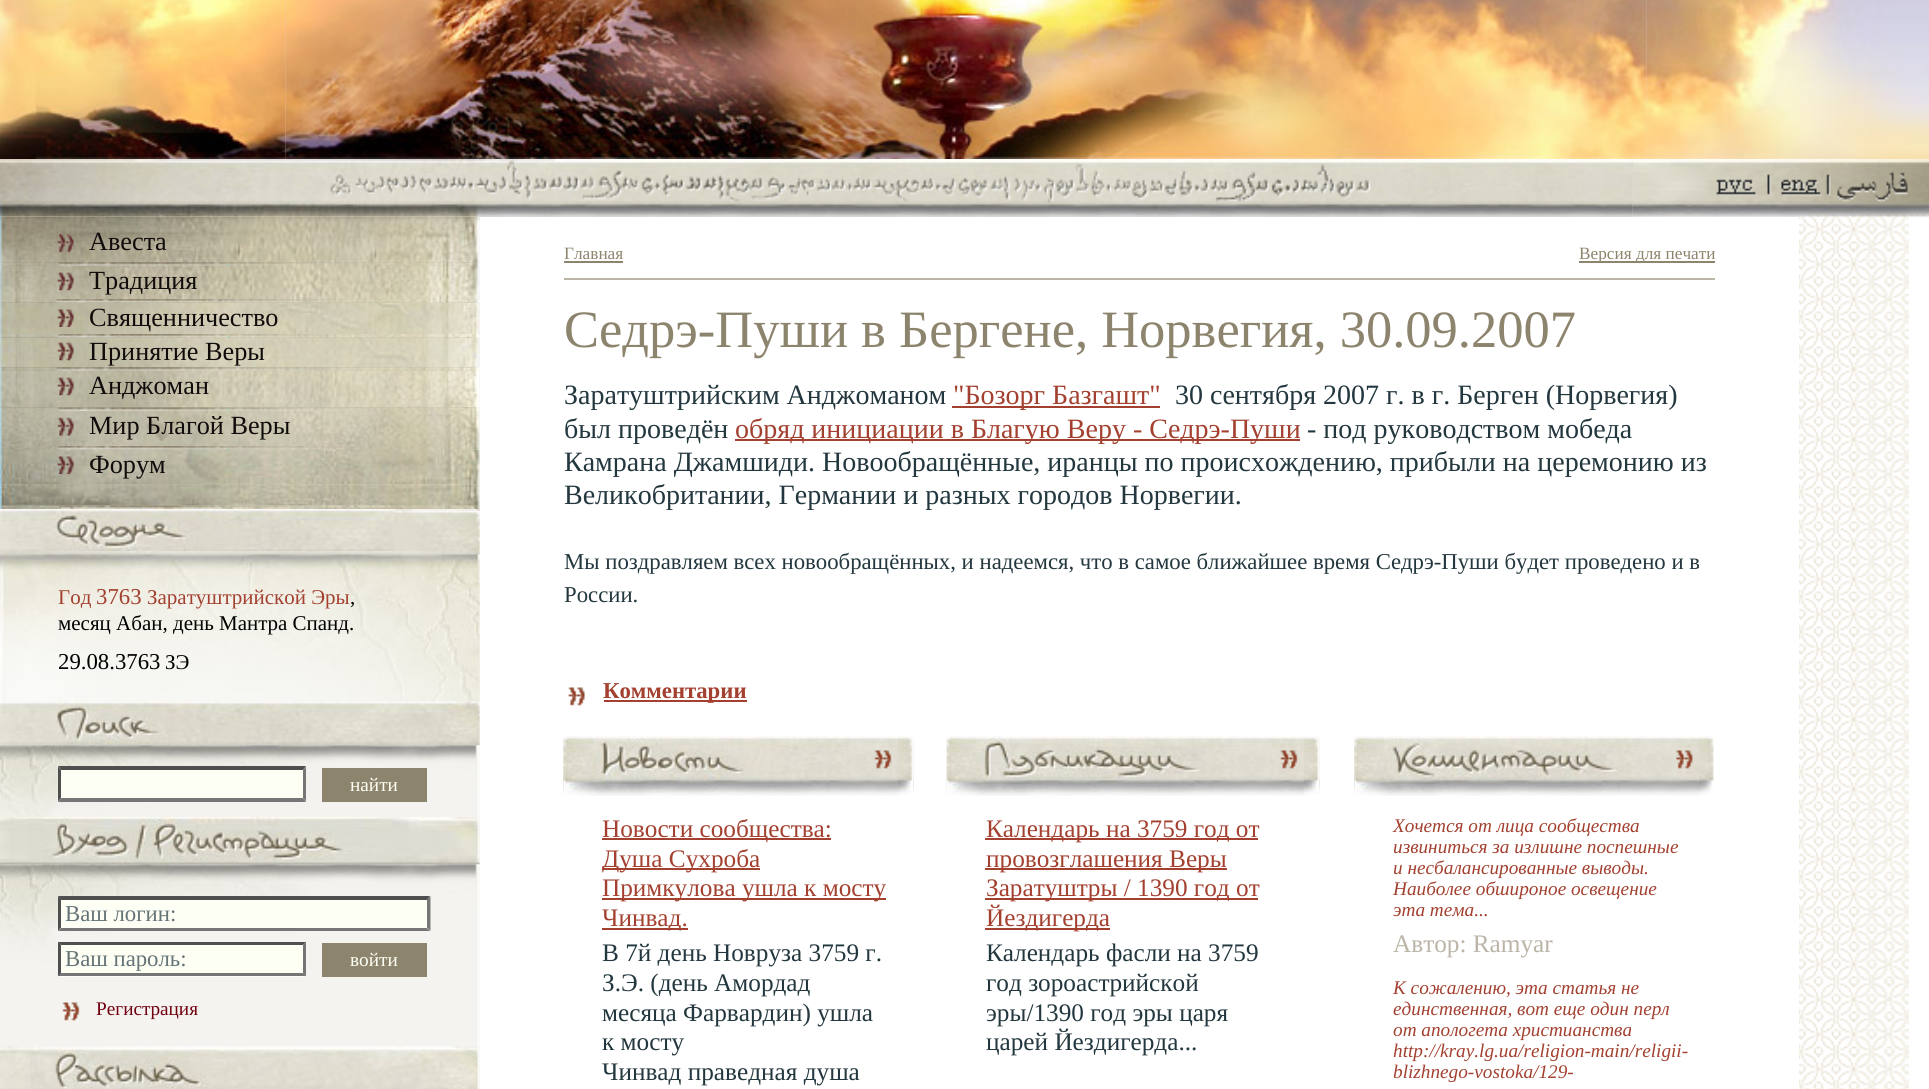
import math
import cairo


def paste(ctx, path, x, y, w, h):
	ctx.save()
	ctx.set_source_surface(cairo.ImageSurface.create_from_png(path), x, y)
	ctx.rectangle(x, y, w, h)
	ctx.fill()
	ctx.restore()

def draw(ctx):
	ctx.set_source_rgb(1, 1, 1)
	ctx.paint()
	paste(ctx, 'media/1.png', 285, 0, 1362, 159)
	paste(ctx, 'media/2.png', 0, 0, 286, 159)
	paste(ctx, 'media/4.png', 1646, 0, 283, 159)
	paste(ctx, 'media/3.png', 285, 0, 1362, 159)
	ctx.set_source_rgb(0.863, 0.851, 0.796)
	ctx.rectangle(0, 159, 1633, 58)
	ctx.fill()
	paste(ctx, 'media/5.png', 0, 159, 1633, 58)
	paste(ctx, 'media/6.png', 330, 160, 1041, 43)
	paste(ctx, 'media/7.png', 1632, 159, 297, 58)
	paste(ctx, 'media/8.png', 1716, 179, 41, 17)
	paste(ctx, 'media/9.png', 1767, 174, 5, 22)
	paste(ctx, 'media/10.png', 1781, 179, 41, 18)
	paste(ctx, 'media/11.png', 1826, 174, 5, 22)
	paste(ctx, 'media/12.png', 1837, 171, 71, 32)
	ctx.set_source_rgb(0.957, 0.953, 0.937)
	ctx.rectangle(0, 217, 480, 872)
	ctx.fill()
	paste(ctx, 'media/13.png', 0, 216, 480, 293)
	paste(ctx, 'media/14.png', 0, 216, 480, 47)
	paste(ctx, 'media/15.png', 57, 233, 17, 19)
	ctx.select_font_face('Liberation Serif')
	ctx.set_font_size(26.25)
	ctx.set_source_rgb(0.063, 0.047, 0.043)
	ctx.move_to(89, 250)
	ctx.show_text('Авеста')
	paste(ctx, 'media/16.png', 0, 262, 480, 4)
	paste(ctx, 'media/18.png', 0, 265, 480, 34)
	paste(ctx, 'media/17.png', 0, 262, 480, 4)
	paste(ctx, 'media/19.png', 57, 272, 17, 19)
	ctx.move_to(89, 289)
	ctx.show_text('Традиция')
	paste(ctx, 'media/20.png', 0, 299, 480, 4)
	paste(ctx, 'media/21.png', 0, 299, 480, 4)
	paste(ctx, 'media/22.png', 57, 309, 17, 18)
	ctx.move_to(89, 326)
	ctx.show_text('Священничество')
	paste(ctx, 'media/23.png', 0, 334, 480, 4)
	paste(ctx, 'media/24.png', 0, 334, 480, 4)
	paste(ctx, 'media/25.png', 57, 342, 17, 19)
	ctx.move_to(89, 360)
	ctx.show_text('Принятие Веры')
	paste(ctx, 'media/26.png', 0, 367, 480, 4)
	paste(ctx, 'media/28.png', 0, 370, 480, 38)
	paste(ctx, 'media/27.png', 0, 367, 480, 4)
	paste(ctx, 'media/29.png', 57, 377, 17, 19)
	ctx.move_to(89, 394)
	ctx.show_text('Анджоман')
	paste(ctx, 'media/30.png', 0, 407, 480, 4)
	paste(ctx, 'media/31.png', 0, 407, 480, 4)
	paste(ctx, 'media/32.png', 0, 411, 480, 35)
	paste(ctx, 'media/33.png', 57, 417, 17, 19)
	ctx.move_to(89, 434)
	ctx.show_text('Мир Благой Веры')
	paste(ctx, 'media/34.png', 0, 446, 480, 4)
	paste(ctx, 'media/36.png', 0, 449, 480, 36)
	paste(ctx, 'media/35.png', 0, 446, 480, 4)
	paste(ctx, 'media/37.png', 57, 456, 17, 18)
	ctx.move_to(89, 473)
	ctx.show_text('Форум')
	paste(ctx, 'media/38.png', 0, 484, 480, 24)
	paste(ctx, 'media/39.png', 0, 505, 480, 4)
	paste(ctx, 'media/40.png', 57, 505, 334, 4)
	paste(ctx, 'media/41.png', 0, 509, 480, 42)
	paste(ctx, 'media/42.png', 0, 551, 480, 151)
	ctx.set_font_size(21)
	ctx.set_source_rgb(0.639, 0.251, 0.184)
	ctx.move_to(58, 604)
	ctx.show_text('Год')
	ctx.set_font_size(22.75)
	ctx.move_to(96, 604)
	ctx.show_text('3763')
	ctx.set_font_size(21)
	ctx.move_to(147, 604)
	ctx.show_text('Заратуштрийской Эры')
	ctx.set_source_rgb(0, 0, 0)
	ctx.move_to(350, 604)
	ctx.show_text(',')
	ctx.move_to(58, 630)
	ctx.show_text('месяц Абан, день Мантра Спанд.')
	ctx.set_font_size(22.75)
	ctx.move_to(58, 669)
	ctx.show_text('29.08.3763')
	ctx.set_font_size(21)
	ctx.move_to(165, 669)
	ctx.show_text('ЗЭ')
	paste(ctx, 'media/44.png', 0, 745, 480, 72)
	paste(ctx, 'media/43.png', 0, 701, 480, 45)
	ctx.set_source_rgb(0.992, 1, 0.957)
	ctx.rectangle(58, 767, 248, 35)
	ctx.fill()
	ctx.set_source_rgb(0.31, 0.31, 0.31)
	ctx.new_path()
	ctx.move_to(58, 766)
	ctx.line_to(306, 766)
	ctx.line_to(303, 770)
	ctx.line_to(61, 770)
	ctx.close_path()
	ctx.fill()
	ctx.set_source_rgb(0.463, 0.463, 0.463)
	ctx.new_path()
	ctx.move_to(306, 766.5)
	ctx.line_to(306, 801.5)
	ctx.line_to(303, 798)
	ctx.line_to(303, 770)
	ctx.close_path()
	ctx.fill()
	ctx.new_path()
	ctx.move_to(306, 802)
	ctx.line_to(58, 802)
	ctx.line_to(61, 798)
	ctx.line_to(303, 798)
	ctx.close_path()
	ctx.fill()
	ctx.set_source_rgb(0.31, 0.31, 0.31)
	ctx.new_path()
	ctx.move_to(58, 801.5)
	ctx.line_to(58, 766.5)
	ctx.line_to(61, 770)
	ctx.line_to(61, 798)
	ctx.close_path()
	ctx.fill()
	ctx.set_source_rgb(0.553, 0.518, 0.427)
	ctx.rectangle(322, 768, 105, 34)
	ctx.fill()
	ctx.set_font_size(19.25)
	ctx.set_source_rgb(0.992, 1, 0.957)
	ctx.move_to(350, 791)
	ctx.show_text('найти')
	paste(ctx, 'media/46.png', 0, 864, 480, 182)
	paste(ctx, 'media/45.png', 0, 817, 480, 48)
	ctx.rectangle(58, 896, 373, 35)
	ctx.fill()
	ctx.set_source_rgb(0.31, 0.31, 0.31)
	ctx.new_path()
	ctx.move_to(58, 896)
	ctx.line_to(430, 896)
	ctx.line_to(427, 900)
	ctx.line_to(61, 900)
	ctx.close_path()
	ctx.fill()
	ctx.set_source_rgb(0.463, 0.463, 0.463)
	ctx.new_path()
	ctx.move_to(430.5, 896)
	ctx.line_to(430.5, 931)
	ctx.line_to(427, 927.5)
	ctx.line_to(427, 899.5)
	ctx.close_path()
	ctx.fill()
	ctx.new_path()
	ctx.move_to(430, 931)
	ctx.line_to(58, 931)
	ctx.line_to(61, 928)
	ctx.line_to(427, 928)
	ctx.close_path()
	ctx.fill()
	ctx.set_source_rgb(0.31, 0.31, 0.31)
	ctx.new_path()
	ctx.move_to(58, 931)
	ctx.line_to(58, 896)
	ctx.line_to(61, 899.5)
	ctx.line_to(61, 927.5)
	ctx.close_path()
	ctx.fill()
	ctx.set_font_size(22.75)
	ctx.set_source_rgb(0.396, 0.451, 0.467)
	ctx.move_to(65, 921)
	ctx.show_text('Ваш логин:')
	ctx.set_source_rgb(0.992, 1, 0.957)
	ctx.rectangle(58, 942, 248, 35)
	ctx.fill()
	ctx.set_source_rgb(0.31, 0.31, 0.31)
	ctx.new_path()
	ctx.move_to(58, 942)
	ctx.line_to(306, 942)
	ctx.line_to(303, 945)
	ctx.line_to(61, 945)
	ctx.close_path()
	ctx.fill()
	ctx.set_source_rgb(0.463, 0.463, 0.463)
	ctx.new_path()
	ctx.move_to(306, 941.5)
	ctx.line_to(306, 976.5)
	ctx.line_to(303, 973)
	ctx.line_to(303, 945)
	ctx.close_path()
	ctx.fill()
	ctx.new_path()
	ctx.move_to(306, 976)
	ctx.line_to(58, 976)
	ctx.line_to(61, 973)
	ctx.line_to(303, 973)
	ctx.close_path()
	ctx.fill()
	ctx.set_source_rgb(0.31, 0.31, 0.31)
	ctx.new_path()
	ctx.move_to(58, 976.5)
	ctx.line_to(58, 941.5)
	ctx.line_to(61, 945)
	ctx.line_to(61, 973)
	ctx.close_path()
	ctx.fill()
	ctx.set_source_rgb(0.396, 0.451, 0.467)
	ctx.move_to(65, 966)
	ctx.show_text('Ваш пароль:')
	ctx.set_source_rgb(0.553, 0.518, 0.427)
	ctx.rectangle(322, 943, 105, 34)
	ctx.fill()
	ctx.set_font_size(19.25)
	ctx.set_source_rgb(0.992, 1, 0.957)
	ctx.move_to(350, 966)
	ctx.show_text('войти')
	paste(ctx, 'media/47.png', 62, 1002, 18, 19)
	ctx.set_source_rgb(0.443, 0, 0.063)
	ctx.move_to(96, 1015)
	ctx.show_text('Регистрация')
	paste(ctx, 'media/48.png', 0, 1046, 480, 43)
	ctx.set_source_rgb(0.733, 0.71, 0.655)
	ctx.rectangle(564, 278, 1151, 2)
	ctx.fill()
	ctx.set_font_size(17.25)
	ctx.set_source_rgb(0.553, 0.518, 0.427)
	ctx.move_to(564, 259)
	ctx.show_text('Главная')
	ctx.rectangle(564, 261, 59, 2)
	ctx.fill()
	ctx.rectangle(1579, 261, 136, 2)
	ctx.fill()
	ctx.move_to(1579, 259)
	ctx.show_text('Версия для печати')
	ctx.set_font_size(52.5)
	ctx.move_to(564, 347)
	ctx.show_text('Седрэ-Пуши в Бергене, Норвегия, 30.09.2007')
	ctx.set_font_size(28)
	ctx.set_source_rgb(0.137, 0.216, 0.243)
	ctx.move_to(564, 404)
	ctx.show_text('Заратуштрийским Анджоманом')
	ctx.set_source_rgb(0.639, 0.251, 0.184)
	ctx.rectangle(952, 406, 208, 2)
	ctx.fill()
	ctx.move_to(953, 404)
	ctx.show_text('"Бозорг Базгашт"')
	ctx.set_source_rgb(0.137, 0.216, 0.243)
	ctx.move_to(1175, 404)
	ctx.show_text('30 сентября 2007 г. в г. Берген (Норвегия)')
	ctx.move_to(564, 438)
	ctx.show_text('был проведён')
	ctx.set_source_rgb(0.639, 0.251, 0.184)
	ctx.rectangle(735, 439, 565, 2)
	ctx.fill()
	ctx.move_to(735, 438)
	ctx.show_text('обряд инициации в Благую Веру - Седрэ-Пуши')
	ctx.set_source_rgb(0.137, 0.216, 0.243)
	for x, y, s in [
		(1307, 438, '- под руководством мобеда'),
		(564, 471, 'Камрана Джамшиди. Новообращённые, иранцы по происхождению, прибыли на церемонию из'),
		(564, 504, 'Великобритании, Германии и разных городов Норвегии.'),
	]:
		ctx.move_to(x, y)
		ctx.show_text(s)
	ctx.set_font_size(22.75)
	ctx.move_to(564, 569)
	ctx.show_text('Мы поздравляем всех новообращённых, и надеемся, что в самое ближайшее время Седрэ-Пуши будет проведено и в')
	ctx.move_to(564, 602)
	ctx.show_text('России.')
	paste(ctx, 'media/49.png', 568, 687, 17, 19)
	ctx.set_source_rgb(0.639, 0.251, 0.184)
	ctx.rectangle(604, 700, 143, 2)
	ctx.fill()
	ctx.select_font_face('Liberation Serif', cairo.FONT_SLANT_NORMAL, cairo.FONT_WEIGHT_BOLD)
	ctx.move_to(603, 698)
	ctx.show_text('Комментарии')
	paste(ctx, 'media/50.png', 563, 736, 351, 60)
	paste(ctx, 'media/51.png', 563, 736, 263, 60)
	paste(ctx, 'media/52.png', 874, 750, 18, 19)
	paste(ctx, 'media/53.png', 898, 736, 16, 60)
	ctx.rectangle(602, 838, 229, 2)
	ctx.fill()
	ctx.select_font_face('Liberation Serif')
	ctx.set_font_size(25.25)
	ctx.move_to(602, 837)
	ctx.show_text('Новости сообщества:')
	ctx.rectangle(602, 868, 158, 2)
	ctx.fill()
	ctx.move_to(602, 867)
	ctx.show_text('Душа Сухроба')
	ctx.rectangle(602, 898, 284, 2)
	ctx.fill()
	ctx.move_to(602, 896)
	ctx.show_text('Примкулова ушла к мосту')
	ctx.rectangle(602, 928, 86, 2)
	ctx.fill()
	ctx.move_to(602, 926)
	ctx.show_text('Чинвад.')
	ctx.set_source_rgb(0.137, 0.216, 0.243)
	for x, y, s in [
		(602, 961, 'В 7й день Новруза 3759 г.'),
		(602, 991, 'З.Э. (день Амордад'),
		(602, 1021, 'месяца Фарвардин) ушла'),
		(602, 1050, 'к мосту'),
		(602, 1080, 'Чинвад праведная душа'),
	]:
		ctx.move_to(x, y)
		ctx.show_text(s)
	paste(ctx, 'media/54.png', 946, 736, 374, 60)
	paste(ctx, 'media/55.png', 946, 736, 263, 60)
	paste(ctx, 'media/56.png', 1280, 750, 18, 19)
	paste(ctx, 'media/57.png', 1303, 737, 17, 59)
	ctx.set_source_rgb(0.639, 0.251, 0.184)
	ctx.rectangle(985, 838, 273, 2)
	ctx.fill()
	ctx.move_to(986, 837)
	ctx.show_text('Календарь на 3759 год от')
	ctx.rectangle(985, 868, 242, 2)
	ctx.fill()
	ctx.move_to(986, 867)
	ctx.show_text('провозглашения Веры')
	ctx.rectangle(985, 898, 273, 2)
	ctx.fill()
	ctx.move_to(986, 896)
	ctx.show_text('Заратуштры / 1390 год от')
	ctx.rectangle(985, 928, 125, 2)
	ctx.fill()
	ctx.move_to(986, 926)
	ctx.show_text('Йездигерда')
	ctx.set_source_rgb(0.137, 0.216, 0.243)
	for x, y, s in [
		(986, 961, 'Календарь фасли на 3759'),
		(986, 991, 'год зороастрийской'),
		(986, 1021, 'эры/1390 год эры царя'),
		(986, 1050, 'царей Йездигерда...'),
	]:
		ctx.move_to(x, y)
		ctx.show_text(s)
	paste(ctx, 'media/58.png', 1354, 736, 361, 60)
	paste(ctx, 'media/59.png', 1354, 736, 263, 60)
	paste(ctx, 'media/60.png', 1676, 750, 17, 19)
	paste(ctx, 'media/61.png', 1699, 736, 16, 60)
	ctx.select_font_face('Liberation Serif', cairo.FONT_SLANT_ITALIC)
	ctx.set_font_size(19.25)
	ctx.set_source_rgb(0.639, 0.251, 0.184)
	for x, y, s in [
		(1393, 832, 'Хочется от лица сообщества'),
		(1393, 853, 'извиниться за излишне поспешные'),
		(1393, 874, 'и несбалансированные выводы.'),
		(1393, 895, 'Наиболее обшироное освещение'),
		(1393, 916, 'эта тема...'),
	]:
		ctx.move_to(x, y)
		ctx.show_text(s)
	ctx.select_font_face('Liberation Serif')
	ctx.set_font_size(25.25)
	ctx.set_source_rgb(0.733, 0.71, 0.655)
	ctx.move_to(1393, 952)
	ctx.show_text('Автор: Ramyar')
	ctx.select_font_face('Liberation Serif', cairo.FONT_SLANT_ITALIC)
	ctx.set_font_size(19.25)
	ctx.set_source_rgb(0.639, 0.251, 0.184)
	for x, y, s in [
		(1393, 994, 'К сожалению, эта статья не'),
		(1393, 1015, 'единственная, вот еще один перл'),
		(1393, 1036, 'от апологета христианства'),
		(1393, 1057, 'http://kray.lg.ua/religion-main/religii-'),
		(1393, 1078, 'blizhnego-vostoka/129-'),
	]:
		ctx.move_to(x, y)
		ctx.show_text(s)
	paste(ctx, 'media/62.png', 1799, 216, 130, 873)


surface = cairo.ImageSurface(cairo.FORMAT_RGB24, 1929, 1089)
ctx = cairo.Context(surface)
options = cairo.FontOptions()
options.set_hint_metrics(cairo.HINT_METRICS_OFF)
options.set_hint_style(cairo.HINT_STYLE_NONE)
ctx.set_font_options(options)
ctx.set_miter_limit(4)
draw(ctx)
surface.write_to_png('image.png')
